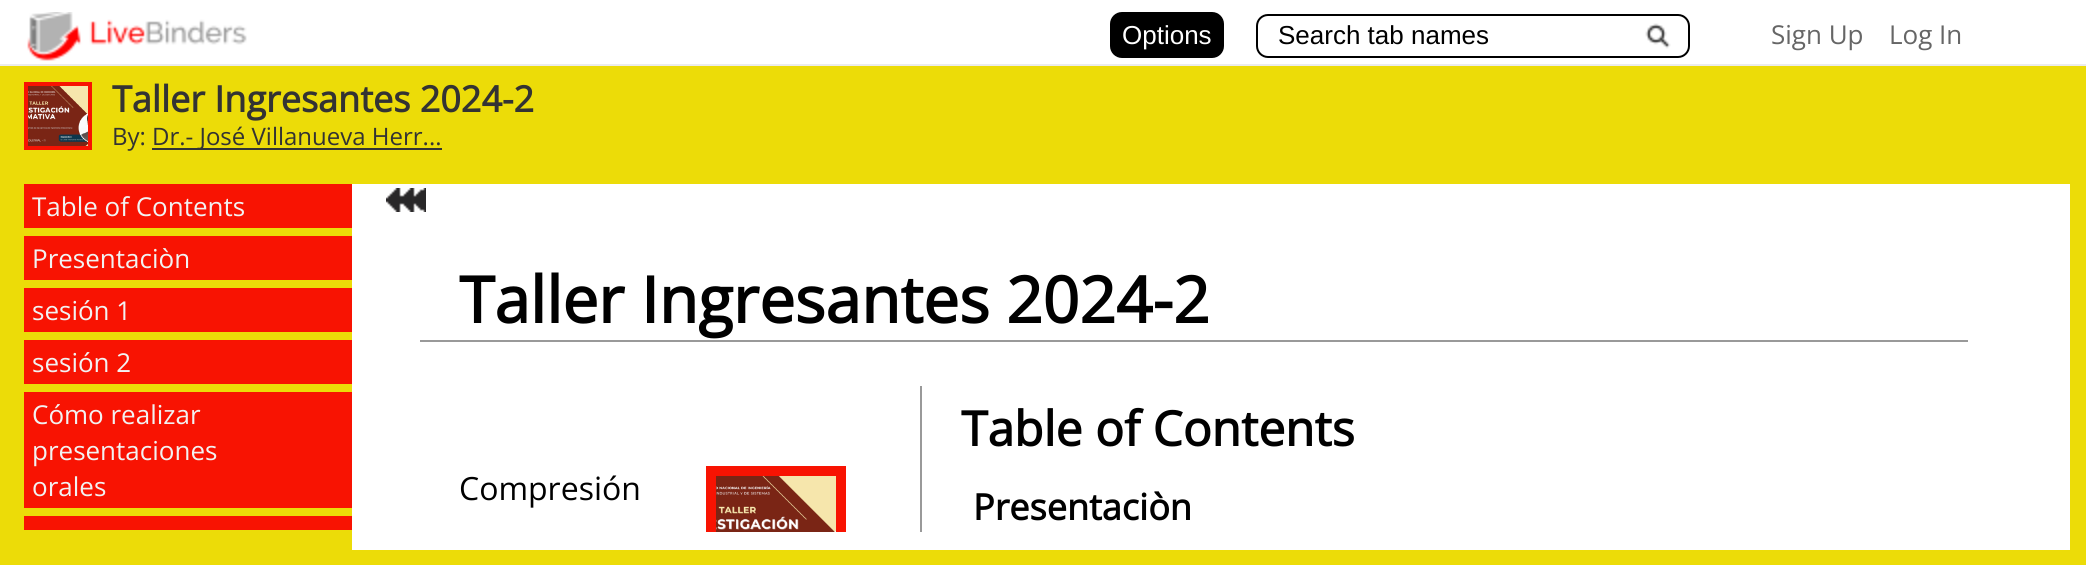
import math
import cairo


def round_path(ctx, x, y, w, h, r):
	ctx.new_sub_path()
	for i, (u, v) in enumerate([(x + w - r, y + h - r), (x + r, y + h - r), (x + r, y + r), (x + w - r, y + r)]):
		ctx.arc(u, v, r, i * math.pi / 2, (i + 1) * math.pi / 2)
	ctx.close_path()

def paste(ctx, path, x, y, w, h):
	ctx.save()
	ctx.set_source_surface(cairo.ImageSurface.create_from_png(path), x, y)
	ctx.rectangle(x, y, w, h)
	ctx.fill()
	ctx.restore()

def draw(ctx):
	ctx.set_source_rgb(0.922, 0.863, 0.035)
	ctx.paint()
	ctx.set_source_rgb(1, 1, 1)
	ctx.rectangle(0, 0, 2086, 64)
	ctx.fill()
	ctx.set_source_rgb(0.922, 0.922, 0.922)
	ctx.rectangle(0, 64, 2086, 2)
	ctx.fill()
	paste(ctx, 'media/1.png', 27, 12, 220, 49)
	ctx.set_source_rgb(0, 0, 0)
	round_path(ctx, 1111, 13, 112, 44, 11)
	ctx.fill_preserve()
	ctx.stroke()
	ctx.select_font_face('Liberation Sans')
	ctx.set_font_size(26)
	ctx.set_source_rgb(1, 1, 1)
	ctx.move_to(1122, 44)
	ctx.show_text('Options')
	paste(ctx, 'media/2.png', 1645, 23, 26, 26)
	round_path(ctx, 1257, 15, 432, 42, 11)
	ctx.set_source_rgb(0, 0, 0)
	ctx.stroke()
	ctx.move_to(1278, 44)
	ctx.show_text('Search tab names')
	ctx.select_font_face('Open Sans')
	ctx.set_source_rgb(0.4, 0.4, 0.4)
	ctx.move_to(1771, 44)
	ctx.show_text('Sign Up')
	ctx.move_to(1889, 44)
	ctx.show_text('Log In')
	ctx.set_source_rgb(0.969, 0.075, 0.008)
	ctx.rectangle(24, 82, 68, 68)
	ctx.fill()
	paste(ctx, 'media/3.png', 28, 86, 60, 60)
	ctx.select_font_face('Open Sans', cairo.FONT_SLANT_NORMAL, cairo.FONT_WEIGHT_BOLD)
	ctx.set_font_size(36)
	ctx.set_source_rgb(0.2, 0.2, 0.2)
	ctx.move_to(112, 112)
	ctx.show_text('Taller Ingresantes 2024-2')
	ctx.select_font_face('Open Sans')
	ctx.set_font_size(24)
	ctx.move_to(112, 145)
	ctx.show_text('By:')
	ctx.rectangle(152, 148, 290, 2)
	ctx.fill()
	ctx.move_to(152, 145)
	ctx.show_text('Dr.- José Villanueva Herr...')
	ctx.set_source_rgb(0.969, 0.075, 0.008)
	ctx.rectangle(24, 184, 328, 44)
	ctx.fill()
	ctx.set_font_size(26)
	ctx.set_source_rgb(0.949, 0.949, 0.949)
	ctx.move_to(32, 216)
	ctx.show_text('Table of Contents')
	ctx.set_source_rgb(0.969, 0.075, 0.008)
	ctx.rectangle(24, 236, 328, 44)
	ctx.fill()
	ctx.set_source_rgb(0.949, 0.949, 0.949)
	ctx.move_to(32, 268)
	ctx.show_text('Presentaciòn')
	ctx.set_source_rgb(0.969, 0.075, 0.008)
	ctx.rectangle(24, 288, 328, 44)
	ctx.fill()
	ctx.set_source_rgb(0.949, 0.949, 0.949)
	ctx.move_to(32, 320)
	ctx.show_text('sesión 1')
	ctx.set_source_rgb(0.969, 0.075, 0.008)
	ctx.rectangle(24, 340, 328, 44)
	ctx.fill()
	ctx.set_source_rgb(0.949, 0.949, 0.949)
	ctx.move_to(32, 372)
	ctx.show_text('sesión 2')
	ctx.set_source_rgb(0.969, 0.075, 0.008)
	ctx.rectangle(24, 392, 328, 116)
	ctx.fill()
	ctx.set_source_rgb(0.949, 0.949, 0.949)
	for x, y, s in [
		(32, 424, 'Cómo realizar'),
		(32, 460, 'presentaciones'),
		(32, 496, 'orales'),
	]:
		ctx.move_to(x, y)
		ctx.show_text(s)
	ctx.set_source_rgb(0.969, 0.075, 0.008)
	ctx.rectangle(24, 516, 328, 14)
	ctx.fill()
	ctx.set_source_rgb(1, 1, 1)
	ctx.rectangle(352, 184, 1718, 366)
	ctx.fill()
	paste(ctx, 'media/4.png', 386, 188, 40, 24)
	ctx.set_source_rgb(0.6, 0.6, 0.6)
	ctx.rectangle(420, 340, 1548, 2)
	ctx.fill()
	ctx.select_font_face('Open Sans', cairo.FONT_SLANT_NORMAL, cairo.FONT_WEIGHT_BOLD)
	ctx.set_font_size(64)
	ctx.set_source_rgb(0, 0, 0)
	ctx.move_to(459, 323)
	ctx.show_text('Taller Ingresantes 2024-2')
	ctx.set_source_rgb(0.6, 0.6, 0.6)
	ctx.rectangle(920, 386, 2, 146)
	ctx.fill()
	ctx.set_font_size(48)
	ctx.set_source_rgb(0, 0, 0)
	ctx.move_to(961, 446)
	ctx.show_text('Table of Contents')
	ctx.select_font_face('Open Sans')
	ctx.set_font_size(32)
	ctx.move_to(459, 500)
	ctx.show_text('Compresión')
	ctx.set_source_rgb(0.969, 0.075, 0.008)
	ctx.rectangle(706, 466, 140, 66)
	ctx.fill()
	paste(ctx, 'media/5.png', 716, 476, 120, 56)
	ctx.select_font_face('Open Sans', cairo.FONT_SLANT_NORMAL, cairo.FONT_WEIGHT_BOLD)
	ctx.set_font_size(36)
	ctx.set_source_rgb(0, 0, 0)
	ctx.move_to(973, 520)
	ctx.show_text('Presentaciòn')


surface = cairo.ImageSurface(cairo.FORMAT_RGB24, 2086, 565)
ctx = cairo.Context(surface)
options = cairo.FontOptions()
options.set_hint_metrics(cairo.HINT_METRICS_OFF)
options.set_hint_style(cairo.HINT_STYLE_NONE)
ctx.set_font_options(options)
ctx.set_miter_limit(4)
draw(ctx)
surface.write_to_png('image.png')
